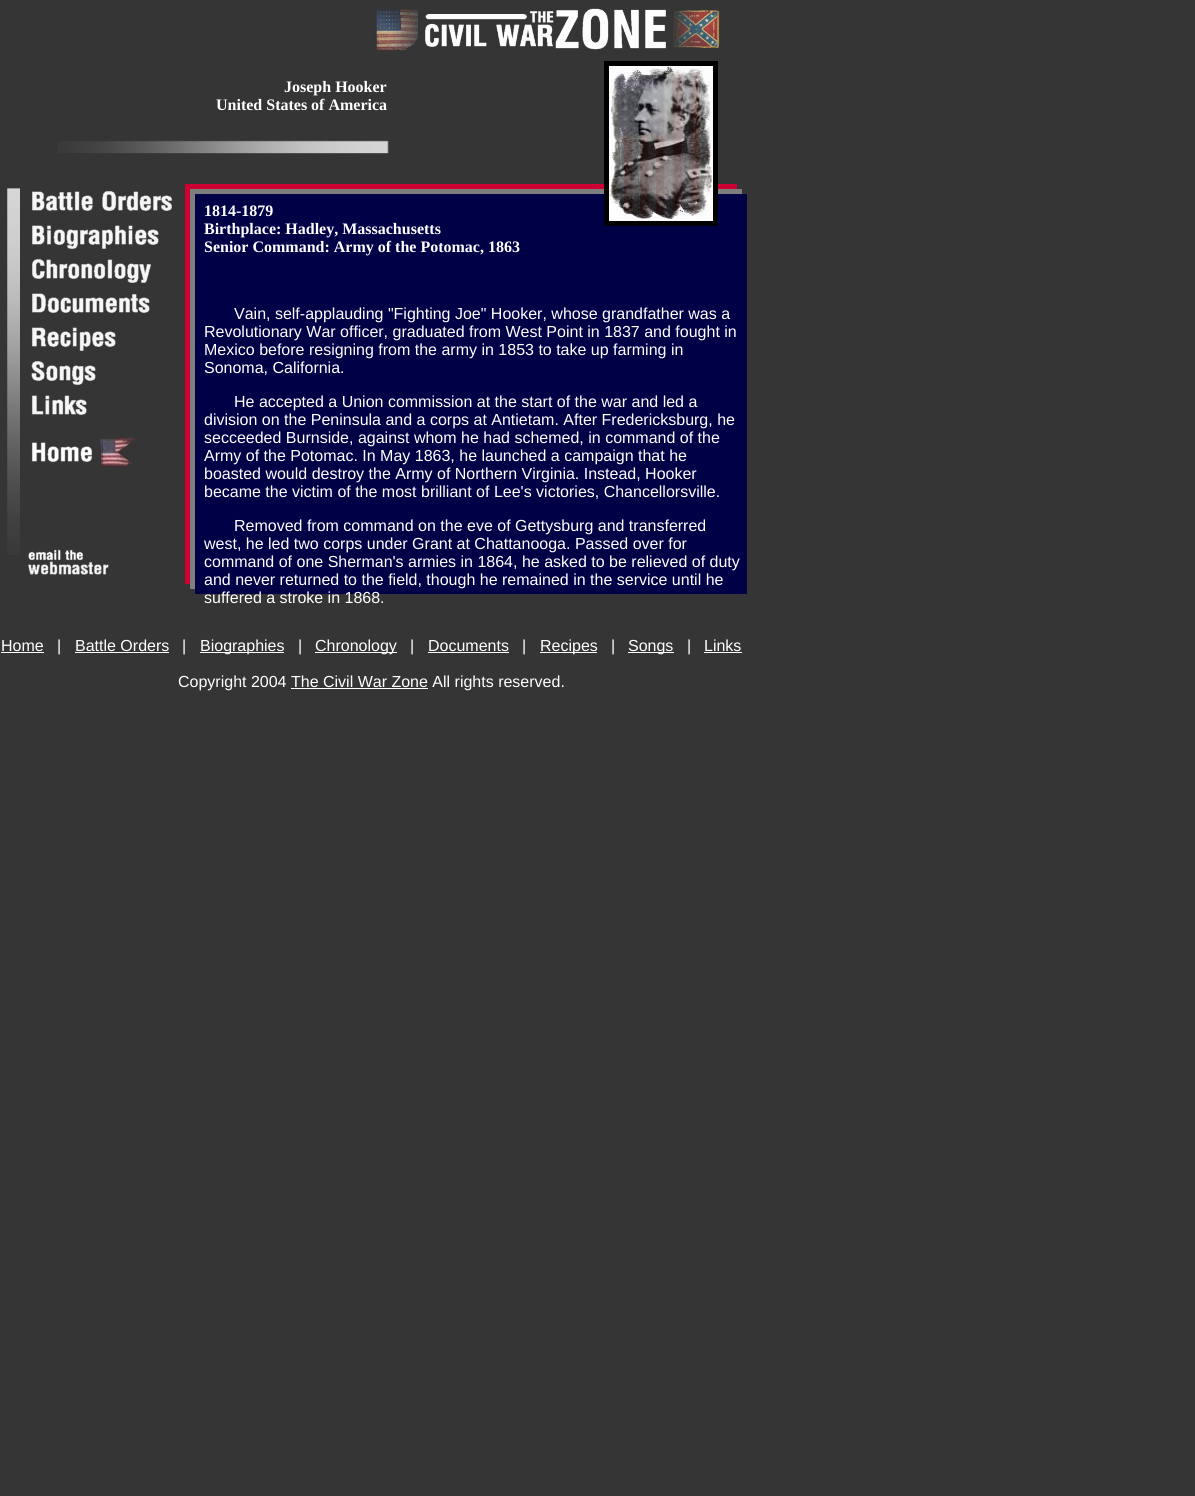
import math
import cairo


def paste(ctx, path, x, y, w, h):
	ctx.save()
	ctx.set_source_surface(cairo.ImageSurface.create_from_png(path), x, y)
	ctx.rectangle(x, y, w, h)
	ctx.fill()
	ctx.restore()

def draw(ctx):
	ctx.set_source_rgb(0.208, 0.208, 0.208)
	ctx.paint()
	paste(ctx, 'media/1.png', 375, 9, 49, 42)
	paste(ctx, 'media/2.png', 418, 8, 248, 42)
	paste(ctx, 'media/3.png', 673, 10, 47, 38)
	ctx.set_source_rgb(0.8, 0, 0.2)
	ctx.rectangle(185, 184, 552, 400)
	ctx.fill()
	ctx.set_source_rgb(0.494, 0.494, 0.494)
	ctx.rectangle(190, 189, 552, 400)
	ctx.fill()
	ctx.set_source_rgb(0, 0, 0.278)
	ctx.rectangle(195, 194, 552, 400)
	ctx.fill()
	ctx.set_source_rgb(0, 0, 0)
	ctx.rectangle(604, 61, 114, 165)
	ctx.fill()
	ctx.select_font_face('Liberation Serif', cairo.FONT_SLANT_NORMAL, cairo.FONT_WEIGHT_BOLD)
	ctx.set_font_size(16)
	ctx.set_source_rgb(1, 1, 1)
	ctx.move_to(284, 92)
	ctx.show_text('Joseph Hooker')
	ctx.move_to(216, 110)
	ctx.show_text('United States of America')
	paste(ctx, 'media/4.png', 609, 66, 104, 155)
	paste(ctx, 'media/5.png', 58, 140, 331, 14)
	paste(ctx, 'media/6.png', 7, 188, 13, 367)
	paste(ctx, 'media/7.png', 32, 191, 140, 20)
	paste(ctx, 'media/8.png', 32, 225, 127, 24)
	for x, y, s in [
		(204, 216, '1814-1879'),
		(204, 234, 'Birthplace: Hadley, Massachusetts'),
		(204, 252, 'Senior Command: Army of the Potomac, 1863'),
	]:
		ctx.move_to(x, y)
		ctx.show_text(s)
	paste(ctx, 'media/9.png', 32, 259, 119, 24)
	paste(ctx, 'media/10.png', 32, 293, 118, 20)
	paste(ctx, 'media/11.png', 31, 327, 85, 24)
	ctx.select_font_face('Liberation Sans')
	for x, y, s in [
		(234, 319, 'Vain, self-applauding "Fighting Joe" Hooker, whose grandfather was a'),
		(204, 337, 'Revolutionary War officer, graduated from West Point in 1837 and fought in'),
		(204, 355, 'Mexico before resigning from the army in 1853 to take up farming in'),
		(204, 373, 'Sonoma, California.'),
		(234, 407, 'He accepted a Union commission at the start of the war and led a'),
		(204, 425, 'division on the Peninsula and a corps at Antietam. After Fredericksburg, he'),
		(204, 443, 'secceeded Burnside, against whom he had schemed, in command of the'),
		(204, 461, 'Army of the Potomac. In May 1863, he launched a campaign that he'),
		(204, 479, 'boasted would destroy the Army of Northern Virginia. Instead, Hooker'),
		(204, 497, 'became the victim of the most brilliant of Lee\'s victories, Chancellorsville.'),
		(234, 531, 'Removed from command on the eve of Gettysburg and transferred'),
		(204, 549, 'west, he led two corps under Grant at Chattanooga. Passed over for'),
		(204, 567, 'command of one Sherman\'s armies in 1864, he asked to be relieved of duty'),
		(204, 585, 'and never returned to the field, though he remained in the service until he'),
		(204, 603, 'suffered a stroke in 1868.'),
	]:
		ctx.move_to(x, y)
		ctx.show_text(s)
	paste(ctx, 'media/12.png', 31, 361, 65, 24)
	paste(ctx, 'media/13.png', 31, 395, 56, 20)
	paste(ctx, 'media/14.png', 31, 437, 104, 31)
	paste(ctx, 'media/15.png', 28, 549, 81, 26)
	ctx.move_to(1, 651)
	ctx.show_text('Home')
	ctx.rectangle(1, 652, 43, 1)
	ctx.fill()
	ctx.move_to(57, 651)
	ctx.show_text('|')
	ctx.move_to(75, 651)
	ctx.show_text('Battle Orders')
	ctx.rectangle(75, 652, 94, 1)
	ctx.fill()
	ctx.move_to(182, 651)
	ctx.show_text('|')
	ctx.rectangle(200, 652, 84, 1)
	ctx.fill()
	ctx.move_to(200, 651)
	ctx.show_text('Biographies')
	ctx.move_to(298, 651)
	ctx.show_text('|')
	ctx.rectangle(315, 652, 82, 1)
	ctx.fill()
	for x, y, s in [
		(315, 651, 'Chronology'),
		(410, 651, '|'),
		(428, 651, 'Documents'),
	]:
		ctx.move_to(x, y)
		ctx.show_text(s)
	ctx.rectangle(428, 652, 81, 1)
	ctx.fill()
	ctx.move_to(522, 651)
	ctx.show_text('|')
	ctx.rectangle(540, 652, 57, 1)
	ctx.fill()
	ctx.move_to(540, 651)
	ctx.show_text('Recipes')
	ctx.move_to(611, 651)
	ctx.show_text('|')
	ctx.rectangle(628, 652, 46, 1)
	ctx.fill()
	for x, y, s in [
		(628, 651, 'Songs'),
		(687, 651, '|'),
		(704, 651, 'Links'),
	]:
		ctx.move_to(x, y)
		ctx.show_text(s)
	ctx.rectangle(704, 652, 38, 1)
	ctx.fill()
	ctx.move_to(178, 687)
	ctx.show_text('Copyright 2004 The Civil War Zone All rights reserved.')
	ctx.rectangle(291, 688, 137, 1)
	ctx.fill()


surface = cairo.ImageSurface(cairo.FORMAT_RGB24, 1195, 1496)
ctx = cairo.Context(surface)
options = cairo.FontOptions()
options.set_hint_metrics(cairo.HINT_METRICS_OFF)
options.set_hint_style(cairo.HINT_STYLE_NONE)
ctx.set_font_options(options)
ctx.set_miter_limit(4)
draw(ctx)
surface.write_to_png('image.png')
